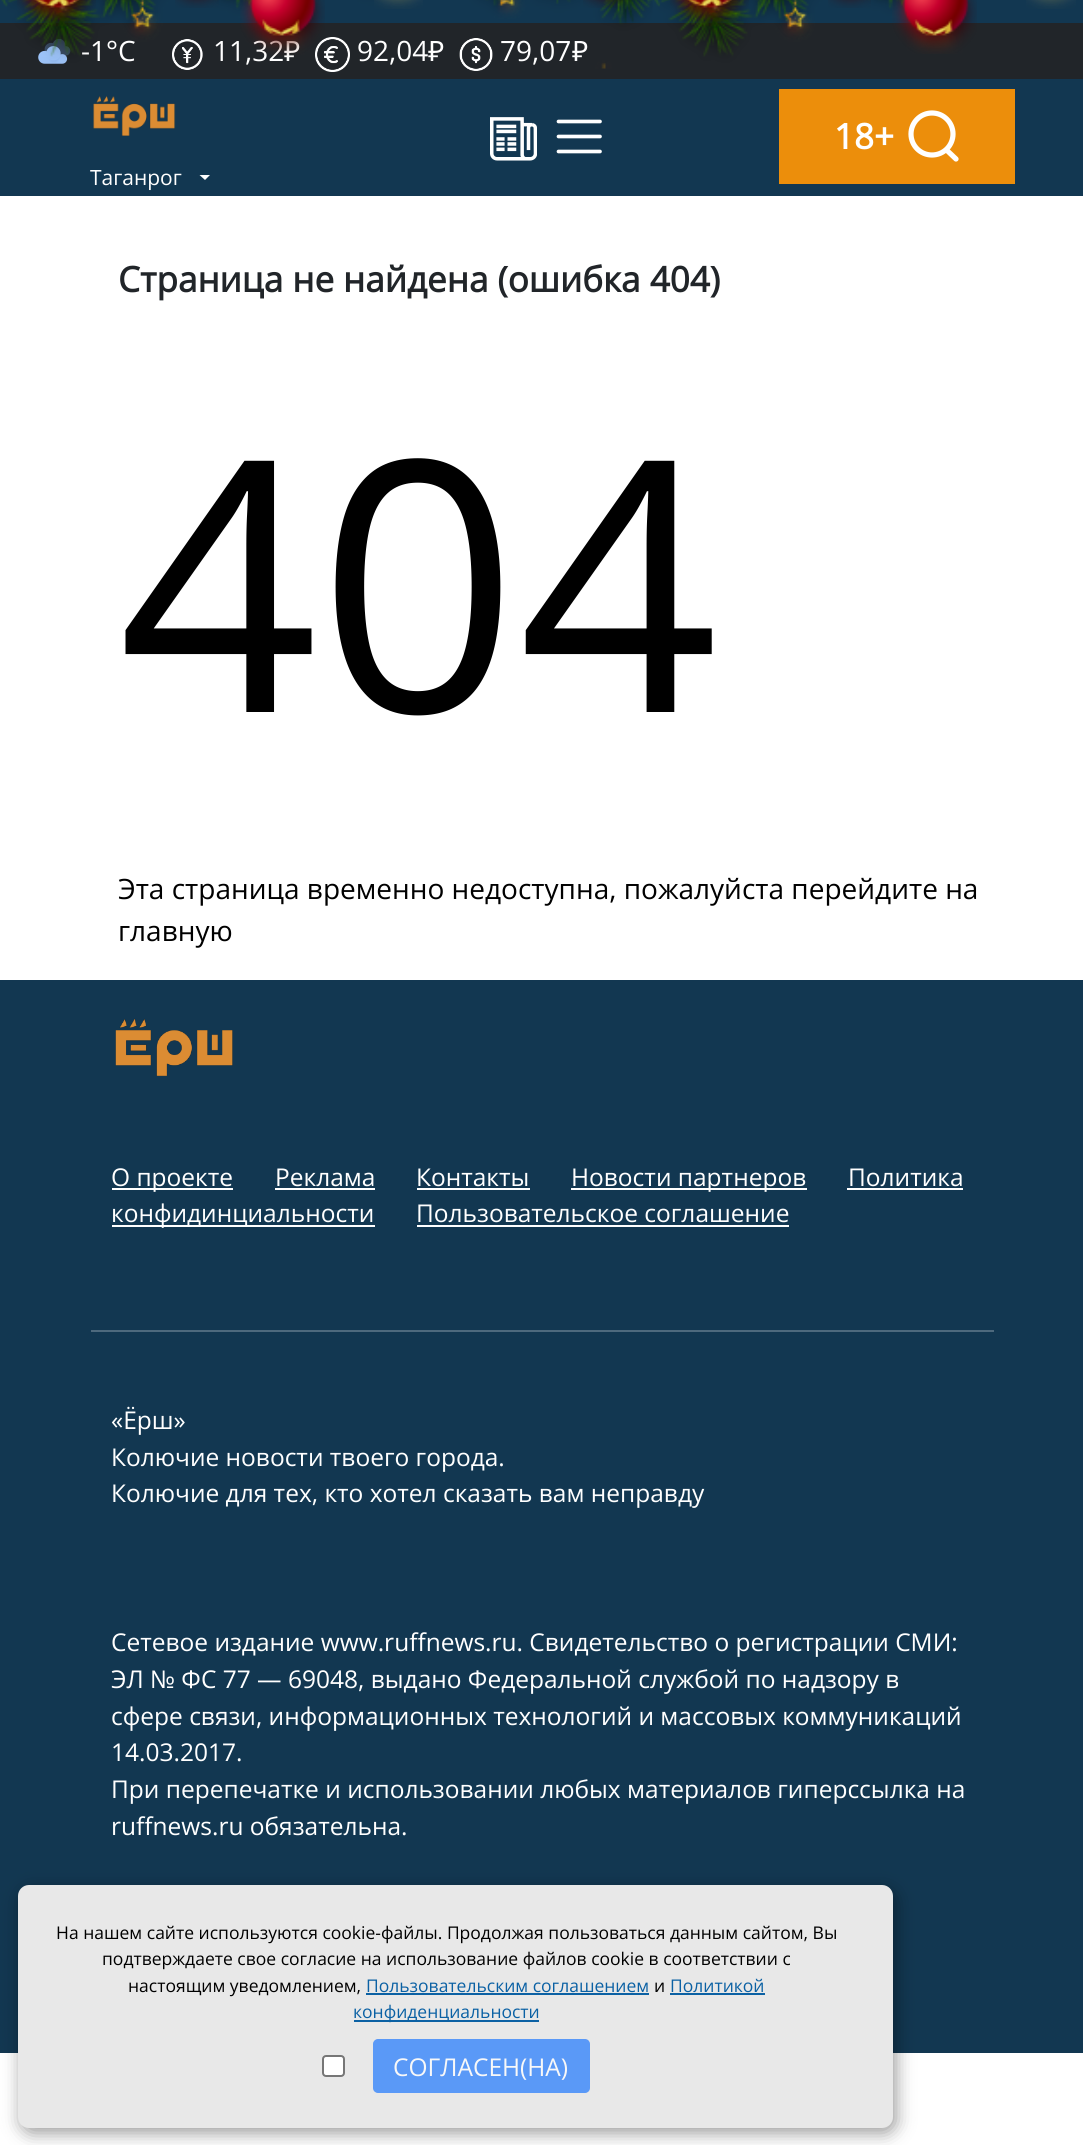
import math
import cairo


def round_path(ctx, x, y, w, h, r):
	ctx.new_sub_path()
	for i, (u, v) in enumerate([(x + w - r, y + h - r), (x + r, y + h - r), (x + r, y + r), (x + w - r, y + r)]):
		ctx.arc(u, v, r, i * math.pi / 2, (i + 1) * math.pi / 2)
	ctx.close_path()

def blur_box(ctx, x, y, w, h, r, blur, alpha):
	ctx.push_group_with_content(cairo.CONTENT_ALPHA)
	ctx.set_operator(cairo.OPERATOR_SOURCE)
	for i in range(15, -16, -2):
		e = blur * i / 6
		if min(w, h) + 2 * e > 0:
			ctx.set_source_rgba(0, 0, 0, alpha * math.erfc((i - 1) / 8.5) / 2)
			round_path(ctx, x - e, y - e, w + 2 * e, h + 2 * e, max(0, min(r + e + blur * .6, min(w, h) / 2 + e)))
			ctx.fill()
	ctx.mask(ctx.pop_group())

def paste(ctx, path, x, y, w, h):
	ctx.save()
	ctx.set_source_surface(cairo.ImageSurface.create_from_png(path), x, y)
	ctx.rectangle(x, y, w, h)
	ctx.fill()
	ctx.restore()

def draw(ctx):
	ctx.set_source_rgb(1, 1, 1)
	ctx.paint()
	ctx.set_source_rgb(0.071, 0.216, 0.318)
	ctx.rectangle(0, 0, 1083, 23)
	ctx.fill()
	ctx.set_source_rgb(0.129, 0.145, 0.161)
	ctx.rectangle(0, 23, 1083, 56)
	ctx.fill()
	paste(ctx, 'media/14.png', 38, 38, 33, 26)
	ctx.select_font_face('Open Sans')
	ctx.set_font_size(28)
	ctx.set_source_rgb(1, 1, 1)
	ctx.move_to(81, 61)
	ctx.show_text('-1°C')
	paste(ctx, 'media/15.png', 172, 39, 31, 31)
	ctx.move_to(213, 61)
	ctx.show_text('11,32')
	ctx.select_font_face('Noto Sans')
	ctx.move_to(284, 61)
	ctx.show_text('₽')
	paste(ctx, 'media/16.png', 315, 37, 35, 35)
	ctx.select_font_face('Open Sans')
	ctx.move_to(357, 61)
	ctx.show_text('92,04')
	ctx.select_font_face('Noto Sans')
	ctx.move_to(428, 61)
	ctx.show_text('₽')
	paste(ctx, 'media/17.png', 459, 38, 34, 33)
	ctx.select_font_face('Open Sans')
	ctx.move_to(500, 61)
	ctx.show_text('79,07')
	ctx.select_font_face('Noto Sans')
	ctx.move_to(572, 61)
	ctx.show_text('₽')
	paste(ctx, 'media/1.png', 7, 0, 900, 69)
	paste(ctx, 'media/2.png', 1, 0, 7, 7)
	paste(ctx, 'media/3.png', 17, 0, 79, 26)
	paste(ctx, 'media/4.png', 175, 0, 44, 8)
	paste(ctx, 'media/5.png', 240, 0, 85, 57)
	paste(ctx, 'media/6.png', 374, 0, 49, 9)
	paste(ctx, 'media/7.png', 583, 0, 40, 8)
	paste(ctx, 'media/8.png', 647, 0, 4, 4)
	paste(ctx, 'media/9.png', 654, 0, 6, 7)
	paste(ctx, 'media/10.png', 670, 0, 79, 26)
	paste(ctx, 'media/11.png', 828, 0, 43, 8)
	paste(ctx, 'media/12.png', 892, 0, 85, 54)
	paste(ctx, 'media/13.png', 1026, 0, 50, 9)
	ctx.set_source_rgb(0.071, 0.216, 0.318)
	ctx.rectangle(0, 79, 1083, 117)
	ctx.fill()
	paste(ctx, 'media/18.png', 490, 117, 47, 44)
	ctx.new_path()
	ctx.move_to(558.5, 121.5)
	ctx.line_to(600, 121.5)
	ctx.move_to(558.5, 136.5)
	ctx.line_to(600, 136.5)
	ctx.move_to(558.5, 151.5)
	ctx.line_to(600, 151.5)
	ctx.set_source_rgb(1, 1, 1)
	ctx.set_line_width(3.7)
	ctx.set_line_cap(cairo.LINE_CAP_ROUND)
	ctx.stroke()
	ctx.set_source_rgb(0.922, 0.557, 0.043)
	ctx.rectangle(779, 89, 236, 95)
	ctx.fill()
	ctx.select_font_face('Open Sans', cairo.FONT_SLANT_NORMAL, cairo.FONT_WEIGHT_BOLD)
	ctx.set_font_size(35)
	ctx.set_source_rgb(1, 1, 1)
	ctx.move_to(834, 149)
	ctx.show_text('18+')
	ctx.new_path()
	ctx.arc(932, 134, 21, 0, 2 * math.pi)
	ctx.set_line_width(5.2)
	ctx.set_line_cap(cairo.LINE_CAP_BUTT)
	ctx.stroke()
	ctx.new_path()
	ctx.move_to(946.5, 150)
	ctx.line_to(956, 159)
	ctx.set_line_cap(cairo.LINE_CAP_ROUND)
	ctx.set_line_join(cairo.LINE_JOIN_ROUND)
	ctx.stroke()
	paste(ctx, 'media/19.png', 93, 96, 83, 40)
	ctx.select_font_face('Open Sans')
	ctx.set_font_size(21)
	ctx.move_to(90, 185)
	ctx.show_text('Таганрог')
	ctx.new_path()
	ctx.move_to(199.5, 175)
	ctx.line_to(210, 175)
	ctx.line_to(205, 180)
	ctx.close_path()
	ctx.fill()
	ctx.select_font_face('Open Sans', cairo.FONT_SLANT_NORMAL, cairo.FONT_WEIGHT_BOLD)
	ctx.set_font_size(35)
	ctx.set_source_rgb(0.129, 0.145, 0.161)
	ctx.move_to(118, 292)
	ctx.show_text('Страница не найдена (ошибка 404)')
	ctx.select_font_face('Open Sans')
	ctx.set_font_size(350)
	ctx.set_source_rgb(0, 0, 0)
	ctx.move_to(118, 712)
	ctx.show_text('404')
	ctx.set_font_size(28)
	ctx.move_to(118, 899)
	ctx.show_text('Эта страница временно недоступна, пожалуйста перейдите на')
	ctx.move_to(118, 941)
	ctx.show_text('главную')
	ctx.set_source_rgb(0.071, 0.216, 0.318)
	ctx.rectangle(0, 980, 1083, 1073)
	ctx.fill()
	paste(ctx, 'media/20.png', 115, 1018, 118, 59)
	ctx.set_source_rgb(1, 1, 1)
	ctx.rectangle(112, 1188, 121, 2)
	ctx.fill()
	ctx.set_font_size(24.5)
	ctx.move_to(111, 1186)
	ctx.show_text('О проекте')
	ctx.move_to(275, 1186)
	ctx.show_text('Реклама')
	ctx.rectangle(275, 1188, 100, 2)
	ctx.fill()
	ctx.move_to(416, 1186)
	ctx.show_text('Контакты')
	ctx.rectangle(417, 1188, 113, 2)
	ctx.fill()
	ctx.rectangle(571, 1188, 236, 2)
	ctx.fill()
	ctx.move_to(571, 1186)
	ctx.show_text('Новости партнеров')
	ctx.move_to(848, 1186)
	ctx.show_text('Политика')
	ctx.rectangle(847, 1188, 116, 2)
	ctx.fill()
	ctx.rectangle(112, 1225, 263, 2)
	ctx.fill()
	ctx.move_to(111, 1222)
	ctx.show_text('конфидинциальности')
	ctx.move_to(416, 1222)
	ctx.show_text('Пользовательское соглашение')
	ctx.rectangle(417, 1225, 372, 2)
	ctx.fill()
	ctx.set_source_rgb(0.302, 0.412, 0.49)
	ctx.rectangle(91, 1330, 903, 2)
	ctx.fill()
	ctx.set_source_rgb(1, 1, 1)
	for x, y, s in [
		(111, 1429, '«Ёрш»'),
		(111, 1466, 'Колючие новости твоего города.'),
		(111, 1502, 'Колючие для тех, кто хотел сказать вам неправду'),
		(111, 1651, 'Сетевое издание www.ruffnews.ru. Свидетельство о регистрации СМИ:'),
		(111, 1688, 'ЭЛ № ФС 77 — 69048, выдано Федеральной службой по надзору в'),
		(111, 1725, 'сфере связи, информационных технологий и массовых коммуникаций'),
		(111, 1761, '14.03.2017.'),
		(111, 1798, 'При перепечатке и использовании любых материалов гиперссылка на'),
		(111, 1835, 'ruffnews.ru обязательна.'),
	]:
		ctx.move_to(x, y)
		ctx.show_text(s)
	ctx.set_source_rgb(0, 0, 0)
	blur_box(ctx, 21, 1890, 875, 243, 11, 9, 0.4)
	ctx.set_source_rgb(0.91, 0.91, 0.91)
	round_path(ctx, 18, 1885, 875, 243, 11)
	ctx.fill()
	ctx.set_font_size(17.5)
	ctx.set_source_rgb(0, 0, 0)
	for x, y, s in [
		(56, 1939, 'На нашем сайте используются cookie-файлы. Продолжая пользоваться данным сайтом, Вы'),
		(102, 1965, 'подтверждаете свое согласие на использование файлов cookie в соответствии с'),
		(128, 1992, 'настоящим уведомлением,'),
	]:
		ctx.move_to(x, y)
		ctx.show_text(s)
	ctx.set_source_rgb(0.043, 0.38, 0.643)
	ctx.move_to(366, 1992)
	ctx.show_text('Пользовательским соглашением')
	ctx.rectangle(366, 1993, 283, 2)
	ctx.fill()
	ctx.set_source_rgb(0, 0, 0)
	ctx.move_to(654, 1992)
	ctx.show_text('и')
	ctx.set_source_rgb(0.043, 0.38, 0.643)
	ctx.move_to(670, 1992)
	ctx.show_text('Политикой')
	ctx.rectangle(670, 1993, 95, 2)
	ctx.fill()
	ctx.rectangle(354, 2020, 185, 2)
	ctx.fill()
	ctx.move_to(353, 2018)
	ctx.show_text('конфиденциальности')
	ctx.set_source_rgb(1, 1, 1)
	round_path(ctx, 323, 2056, 21, 20, 3)
	ctx.fill_preserve()
	ctx.set_source_rgb(0.463, 0.463, 0.463)
	ctx.set_line_width(2)
	ctx.set_line_cap(cairo.LINE_CAP_BUTT)
	ctx.set_line_join(cairo.LINE_JOIN_MITER)
	ctx.stroke()
	ctx.set_source_rgb(0.353, 0.6, 0.965)
	round_path(ctx, 374, 2040, 215, 52, 4)
	ctx.fill_preserve()
	ctx.stroke()
	ctx.set_font_size(24.5)
	ctx.set_source_rgb(0.969, 0.969, 0.969)
	ctx.move_to(393, 2076)
	ctx.show_text('СОГЛАСЕН(НА)')


surface = cairo.ImageSurface(cairo.FORMAT_RGB24, 1083, 2145)
ctx = cairo.Context(surface)
options = cairo.FontOptions()
options.set_hint_metrics(cairo.HINT_METRICS_OFF)
options.set_hint_style(cairo.HINT_STYLE_NONE)
ctx.set_font_options(options)
ctx.set_miter_limit(4)
draw(ctx)
surface.write_to_png('image.png')
